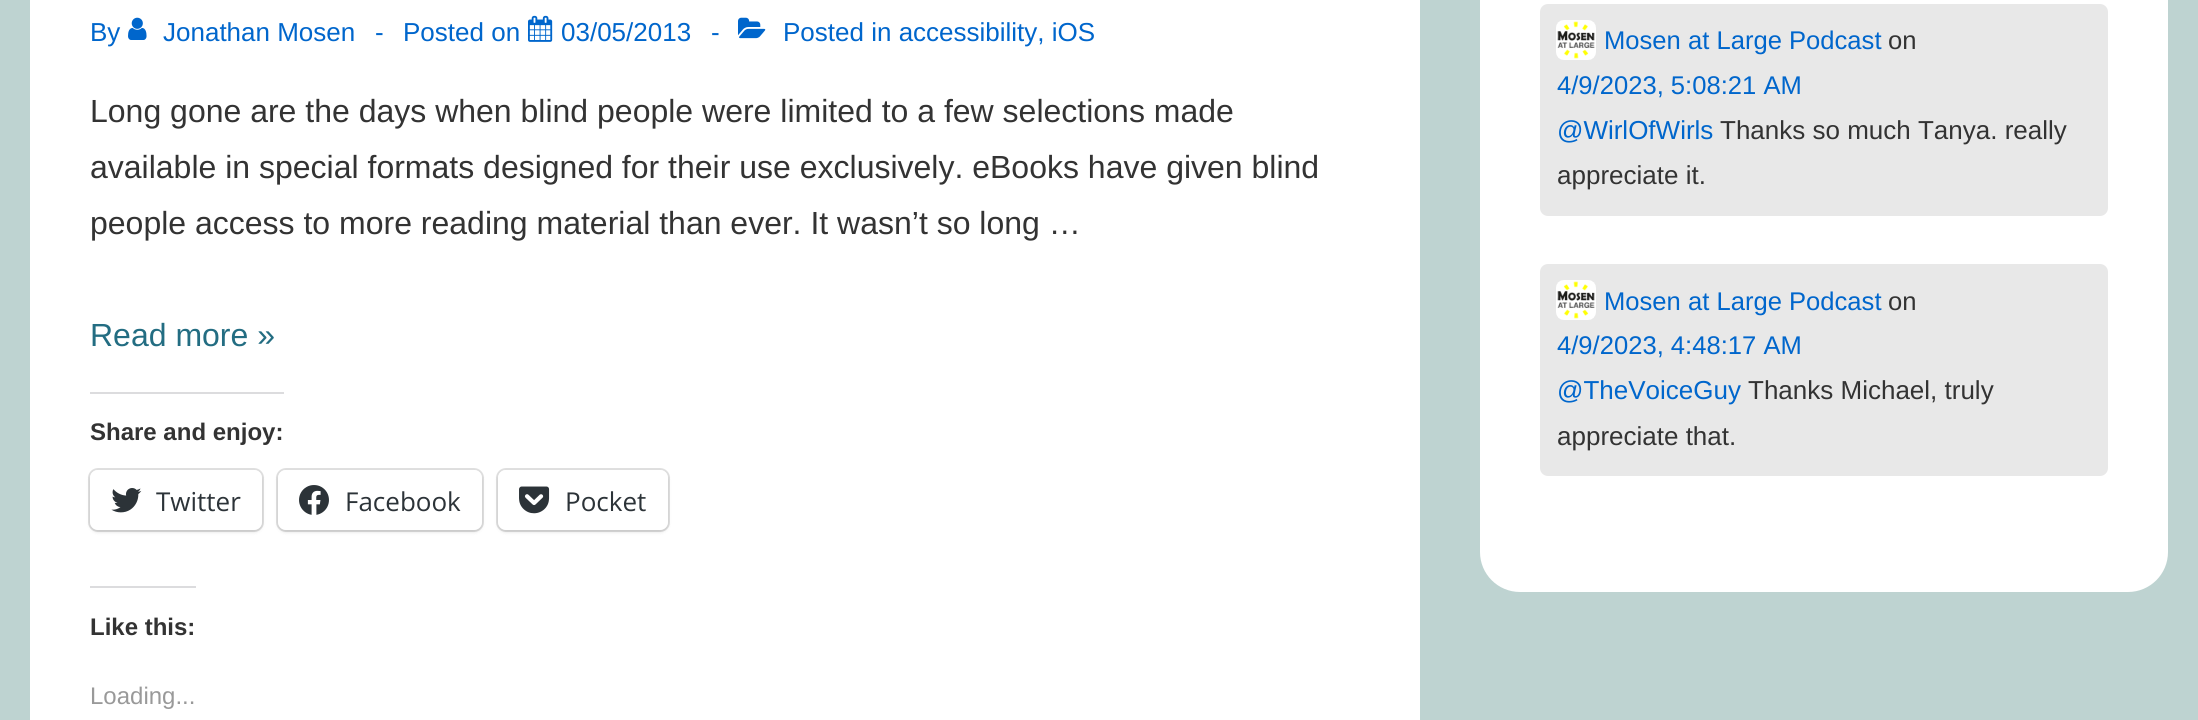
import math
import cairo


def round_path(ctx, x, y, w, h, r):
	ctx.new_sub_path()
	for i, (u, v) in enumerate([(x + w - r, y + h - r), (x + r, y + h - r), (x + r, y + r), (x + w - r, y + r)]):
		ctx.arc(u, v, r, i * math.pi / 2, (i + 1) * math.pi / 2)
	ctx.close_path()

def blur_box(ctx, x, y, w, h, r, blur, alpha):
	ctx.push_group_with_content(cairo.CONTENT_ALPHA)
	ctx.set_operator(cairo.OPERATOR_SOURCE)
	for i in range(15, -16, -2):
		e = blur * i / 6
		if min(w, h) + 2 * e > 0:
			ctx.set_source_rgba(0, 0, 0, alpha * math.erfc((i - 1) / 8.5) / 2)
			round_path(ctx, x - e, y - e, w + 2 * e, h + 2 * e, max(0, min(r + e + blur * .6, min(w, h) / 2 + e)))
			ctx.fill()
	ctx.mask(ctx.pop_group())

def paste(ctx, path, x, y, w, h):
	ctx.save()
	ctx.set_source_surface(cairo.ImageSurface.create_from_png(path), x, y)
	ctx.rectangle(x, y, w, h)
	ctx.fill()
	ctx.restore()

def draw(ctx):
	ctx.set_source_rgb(0.745, 0.827, 0.82)
	ctx.paint()
	ctx.set_source_rgb(1, 1, 1)
	ctx.rectangle(30, 0, 1390, 720)
	ctx.fill()
	ctx.select_font_face('Liberation Sans')
	ctx.set_font_size(26)
	ctx.set_source_rgb(0, 0.4, 0.8)
	ctx.move_to(90, 41)
	ctx.show_text('By')
	paste(ctx, 'media/1.png', 128, 17, 19, 23)
	for x, y, s in [
		(163, 41, 'Jonathan Mosen'),
		(375, 41, '-'),
		(403, 41, 'Posted on'),
	]:
		ctx.move_to(x, y)
		ctx.show_text(s)
	paste(ctx, 'media/2.png', 528, 15, 25, 27)
	ctx.move_to(561, 41)
	ctx.show_text('03/05/2013')
	ctx.move_to(711, 41)
	ctx.show_text('-')
	paste(ctx, 'media/3.png', 738, 17, 28, 22)
	ctx.move_to(783, 41)
	ctx.show_text('Posted in accessibility, iOS')
	ctx.set_font_size(32)
	ctx.set_source_rgb(0.2, 0.2, 0.2)
	for x, y, s in [
		(90, 122, 'Long gone are the days when blind people were limited to a few selections made'),
		(90, 178, 'available in special formats designed for their use exclusively. eBooks have given blind'),
		(90, 234, 'people access to more reading material than ever. It wasn’t so long …'),
	]:
		ctx.move_to(x, y)
		ctx.show_text(s)
	ctx.set_source_rgb(0.137, 0.427, 0.51)
	ctx.move_to(90, 346)
	ctx.show_text('Read more »')
	ctx.set_source_rgb(0.863, 0.863, 0.871)
	ctx.rectangle(90, 392, 194, 2)
	ctx.fill()
	ctx.select_font_face('Liberation Sans', cairo.FONT_SLANT_NORMAL, cairo.FONT_WEIGHT_BOLD)
	ctx.set_font_size(24)
	ctx.set_source_rgb(0.2, 0.2, 0.2)
	ctx.move_to(90, 440)
	ctx.show_text('Share and enjoy:')
	round_path(ctx, 89, 469, 174, 62, 9)
	ctx.set_source_rgb(0.878, 0.878, 0.878)
	ctx.stroke()
	ctx.set_source_rgb(0, 0, 0)
	blur_box(ctx, 90, 472, 172, 60, 8, 2, 0.12)
	ctx.set_source_rgb(1, 1, 1)
	round_path(ctx, 90, 470, 172, 60, 8)
	ctx.fill()
	paste(ctx, 'media/4.png', 111, 488, 31, 25)
	ctx.select_font_face('Open Sans')
	ctx.set_font_size(26)
	ctx.set_source_rgb(0.173, 0.2, 0.22)
	ctx.move_to(156, 511)
	ctx.show_text('Twitter')
	round_path(ctx, 277, 469, 206, 62, 9)
	ctx.set_source_rgb(0.878, 0.878, 0.878)
	ctx.stroke()
	ctx.set_source_rgb(0, 0, 0)
	blur_box(ctx, 278, 472, 204, 60, 8, 2, 0.12)
	ctx.set_source_rgb(1, 1, 1)
	round_path(ctx, 278, 470, 204, 60, 8)
	ctx.fill()
	paste(ctx, 'media/5.png', 299, 485, 30, 30)
	ctx.set_source_rgb(0.173, 0.2, 0.22)
	ctx.move_to(345, 511)
	ctx.show_text('Facebook')
	round_path(ctx, 497, 469, 172, 62, 9)
	ctx.set_source_rgb(0.878, 0.878, 0.878)
	ctx.stroke()
	ctx.set_source_rgb(0, 0, 0)
	blur_box(ctx, 498, 472, 170, 60, 8, 2, 0.12)
	ctx.set_source_rgb(1, 1, 1)
	round_path(ctx, 498, 470, 170, 60, 8)
	ctx.fill()
	paste(ctx, 'media/6.png', 519, 486, 31, 28)
	ctx.set_source_rgb(0.173, 0.2, 0.22)
	ctx.move_to(565, 511)
	ctx.show_text('Pocket')
	ctx.set_source_rgb(0.863, 0.863, 0.871)
	ctx.rectangle(90, 586, 106, 2)
	ctx.fill()
	ctx.select_font_face('Liberation Sans', cairo.FONT_SLANT_NORMAL, cairo.FONT_WEIGHT_BOLD)
	ctx.set_font_size(24)
	ctx.set_source_rgb(0.2, 0.2, 0.2)
	ctx.move_to(90, 635)
	ctx.show_text('Like this:')
	ctx.select_font_face('Liberation Sans')
	ctx.set_source_rgb(0.6, 0.6, 0.6)
	ctx.move_to(90, 704)
	ctx.show_text('Loading...')
	ctx.set_source_rgb(1, 1, 1)
	round_path(ctx, 1480, -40, 688, 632, 40)
	ctx.fill()
	ctx.set_source_rgb(0.91, 0.91, 0.91)
	round_path(ctx, 1540, 4, 568, 212, 8)
	ctx.fill()
	paste(ctx, 'media/7.png', 1556, 20, 40, 40)
	ctx.set_font_size(25.6)
	ctx.set_source_rgb(0, 0.4, 0.8)
	ctx.move_to(1604, 49)
	ctx.show_text('Mosen at Large Podcast')
	ctx.set_source_rgb(0.2, 0.2, 0.2)
	ctx.move_to(1888, 49)
	ctx.show_text('on')
	ctx.set_source_rgb(0, 0.4, 0.8)
	ctx.move_to(1557, 94)
	ctx.show_text('4/9/2023, 5:08:21 AM')
	ctx.set_font_size(26)
	ctx.move_to(1557, 139)
	ctx.show_text('@WirlOfWirls')
	ctx.set_source_rgb(0.2, 0.2, 0.2)
	ctx.move_to(1720, 139)
	ctx.show_text('Thanks so much Tanya. really')
	ctx.move_to(1557, 184)
	ctx.show_text('appreciate it.')
	ctx.set_source_rgb(0.91, 0.91, 0.91)
	round_path(ctx, 1540, 264, 568, 212, 8)
	ctx.fill()
	paste(ctx, 'media/7.png', 1556, 280, 40, 40)
	ctx.set_font_size(25.6)
	ctx.set_source_rgb(0, 0.4, 0.8)
	ctx.move_to(1604, 310)
	ctx.show_text('Mosen at Large Podcast')
	ctx.set_source_rgb(0.2, 0.2, 0.2)
	ctx.move_to(1888, 310)
	ctx.show_text('on')
	ctx.set_source_rgb(0, 0.4, 0.8)
	ctx.move_to(1557, 354)
	ctx.show_text('4/9/2023, 4:48:17 AM')
	ctx.set_font_size(26)
	ctx.move_to(1557, 399)
	ctx.show_text('@TheVoiceGuy')
	ctx.set_source_rgb(0.2, 0.2, 0.2)
	ctx.move_to(1748, 399)
	ctx.show_text('Thanks Michael, truly')
	ctx.move_to(1557, 445)
	ctx.show_text('appreciate that.')


surface = cairo.ImageSurface(cairo.FORMAT_RGB24, 2198, 720)
ctx = cairo.Context(surface)
options = cairo.FontOptions()
options.set_hint_metrics(cairo.HINT_METRICS_OFF)
options.set_hint_style(cairo.HINT_STYLE_NONE)
ctx.set_font_options(options)
ctx.set_miter_limit(4)
draw(ctx)
surface.write_to_png('image.png')
